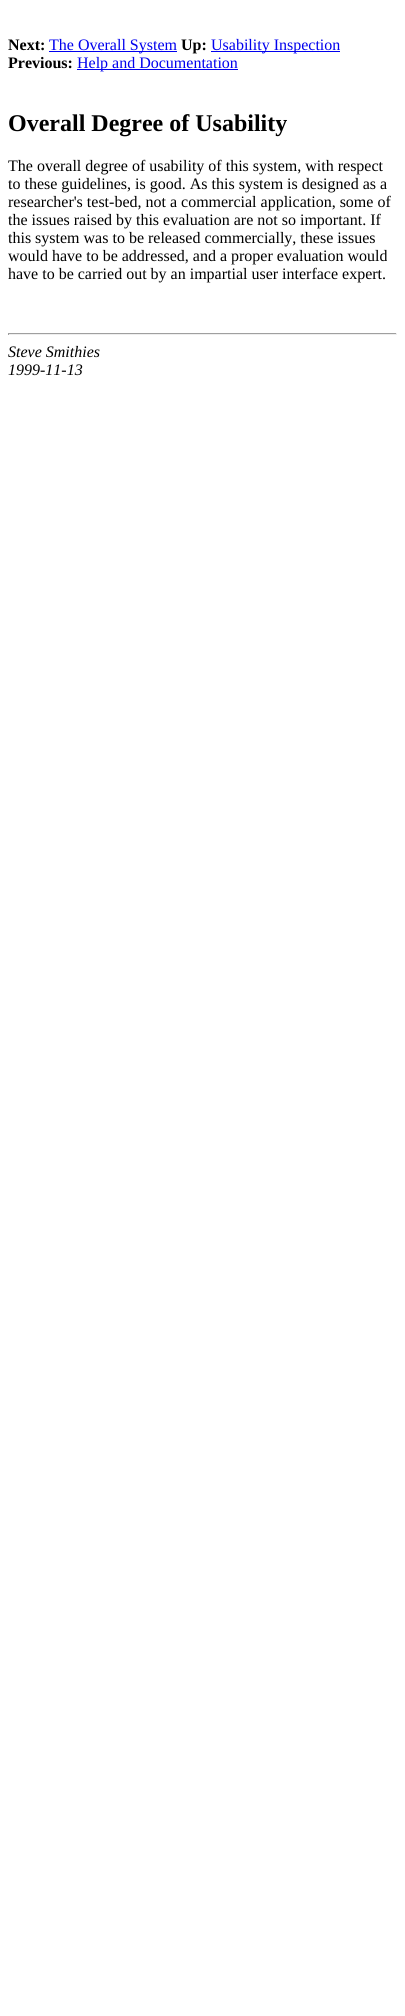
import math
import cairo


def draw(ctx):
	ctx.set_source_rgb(1, 1, 1)
	ctx.paint()
	ctx.select_font_face('Liberation Serif', cairo.FONT_SLANT_NORMAL, cairo.FONT_WEIGHT_BOLD)
	ctx.set_font_size(16)
	ctx.set_source_rgb(0, 0, 0)
	ctx.move_to(8, 50)
	ctx.show_text('Next:')
	ctx.set_source_rgb(0, 0, 0.933)
	ctx.rectangle(49, 51, 128, 1)
	ctx.fill()
	ctx.select_font_face('Liberation Serif')
	ctx.move_to(49, 50)
	ctx.show_text('The Overall System')
	ctx.select_font_face('Liberation Serif', cairo.FONT_SLANT_NORMAL, cairo.FONT_WEIGHT_BOLD)
	ctx.set_source_rgb(0, 0, 0)
	ctx.move_to(181, 50)
	ctx.show_text('Up:')
	ctx.set_source_rgb(0, 0, 0.933)
	ctx.rectangle(211, 51, 129, 1)
	ctx.fill()
	ctx.select_font_face('Liberation Serif')
	ctx.move_to(211, 50)
	ctx.show_text('Usability Inspection')
	ctx.select_font_face('Liberation Serif', cairo.FONT_SLANT_NORMAL, cairo.FONT_WEIGHT_BOLD)
	ctx.set_source_rgb(0, 0, 0)
	ctx.move_to(8, 68)
	ctx.show_text('Previous:')
	ctx.set_source_rgb(0, 0, 0.933)
	ctx.rectangle(77, 69, 161, 1)
	ctx.fill()
	ctx.select_font_face('Liberation Serif')
	ctx.move_to(77, 68)
	ctx.show_text('Help and Documentation')
	ctx.select_font_face('Liberation Serif', cairo.FONT_SLANT_NORMAL, cairo.FONT_WEIGHT_BOLD)
	ctx.set_font_size(24)
	ctx.set_source_rgb(0, 0, 0)
	ctx.move_to(8, 131)
	ctx.show_text('Overall Degree of Usability')
	ctx.select_font_face('Liberation Serif')
	ctx.set_font_size(16)
	for x, y, s in [
		(8, 171, 'The overall degree of usability of this system, with respect'),
		(8, 189, 'to these guidelines, is good. As this system is designed as a'),
		(8, 207, 'researcher\'s test-bed, not a commercial application, some of'),
		(8, 225, 'the issues raised by this evaluation are not so important. If'),
		(8, 243, 'this system was to be released commercially, these issues'),
		(8, 261, 'would have to be addressed, and a proper evaluation would'),
		(8, 279, 'have to be carried out by an impartial user interface expert.'),
	]:
		ctx.move_to(x, y)
		ctx.show_text(s)
	ctx.set_source_rgb(0.624, 0.624, 0.624)
	ctx.rectangle(8, 333, 389, 1)
	ctx.fill()
	ctx.set_source_rgb(0.933, 0.933, 0.933)
	ctx.rectangle(396, 333, 1, 2)
	ctx.rectangle(8, 334, 389, 1)
	ctx.fill()
	ctx.set_source_rgb(0.624, 0.624, 0.624)
	ctx.rectangle(8, 333, 1, 2)
	ctx.fill()
	ctx.select_font_face('Liberation Serif', cairo.FONT_SLANT_ITALIC)
	ctx.set_source_rgb(0, 0, 0)
	ctx.move_to(8, 357)
	ctx.show_text('Steve Smithies')
	ctx.move_to(8, 375)
	ctx.show_text('1999-11-13')


surface = cairo.ImageSurface(cairo.FORMAT_RGB24, 405, 2016)
ctx = cairo.Context(surface)
options = cairo.FontOptions()
options.set_hint_metrics(cairo.HINT_METRICS_OFF)
options.set_hint_style(cairo.HINT_STYLE_NONE)
ctx.set_font_options(options)
ctx.set_miter_limit(4)
draw(ctx)
surface.write_to_png('image.png')
